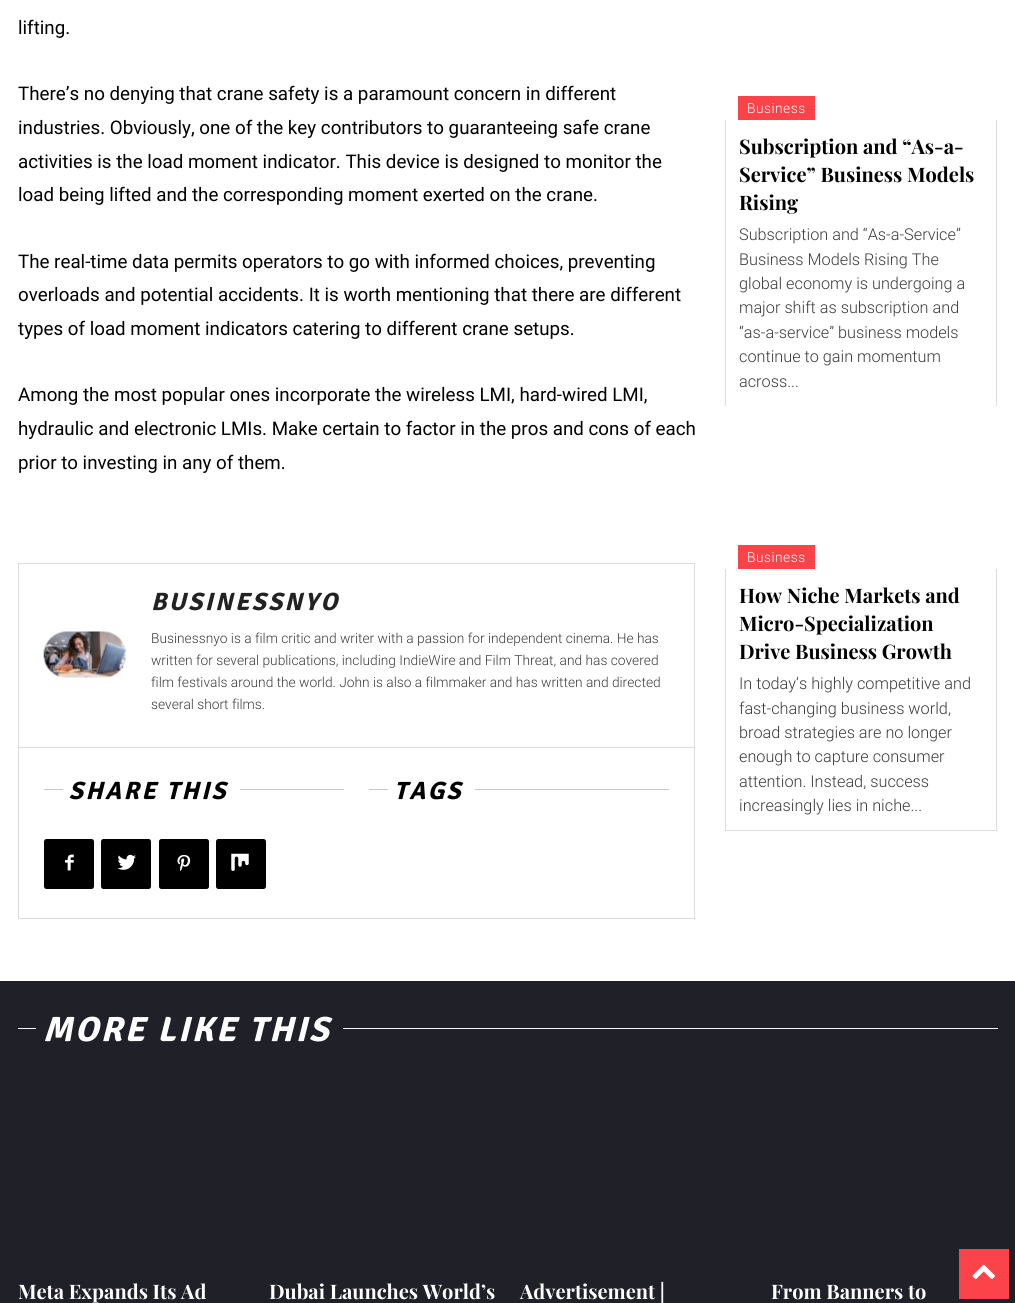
import math
import cairo


def write_spaced(ctx, x, y, s, letter, word):
	ctx.move_to(x, y)
	for ch in s:
		ctx.show_text(ch)
		ctx.rel_move_to(letter + word * (ch == ' '), 0)

def round_path(ctx, x, y, w, h, r):
	ctx.new_sub_path()
	for i, (u, v) in enumerate([(x + w - r, y + h - r), (x + r, y + h - r), (x + r, y + r), (x + w - r, y + r)]):
		ctx.arc(u, v, r, i * math.pi / 2, (i + 1) * math.pi / 2)
	ctx.close_path()

def paste(ctx, path, x, y, w, h):
	ctx.save()
	ctx.set_source_surface(cairo.ImageSurface.create_from_png(path), x, y)
	ctx.rectangle(x, y, w, h)
	ctx.fill()
	ctx.restore()

def draw(ctx):
	ctx.set_source_rgb(1, 1, 1)
	ctx.paint()
	ctx.select_font_face('Roboto')
	ctx.set_font_size(18.75)
	ctx.set_source_rgb(0, 0, 0)
	for x, y, s in [
		(18, 34, 'lifting.'),
		(18, 100, 'There’s no denying that crane safety is a paramount concern in different'),
		(18, 134, 'industries. Obviously, one of the key contributors to guaranteeing safe crane'),
		(18, 168, 'activities is the load moment indicator. This device is designed to monitor the'),
		(18, 201, 'load being lifted and the corresponding moment exerted on the crane.'),
		(18, 268, 'The real-time data permits operators to go with informed choices, preventing'),
		(18, 301, 'overloads and potential accidents. It is worth mentioning that there are different'),
		(18, 335, 'types of load moment indicators catering to different crane setups.'),
		(18, 401, 'Among the most popular ones incorporate the wireless LMI, hard-wired LMI,'),
		(18, 435, 'hydraulic and electronic LMIs. Make certain to factor in the pros and cons of each'),
		(18, 469, 'prior to investing in any of them.'),
	]:
		ctx.move_to(x, y)
		ctx.show_text(s)
	ctx.rectangle(18.5, 563.5, 676, 184)
	ctx.set_source_rgb(0.863, 0.863, 0.871)
	ctx.set_line_width(1)
	ctx.stroke()
	paste(ctx, 'media/1.png', 43, 631, 84, 47)
	ctx.select_font_face('Signika', cairo.FONT_SLANT_ITALIC, cairo.FONT_WEIGHT_BOLD)
	ctx.set_font_size(25)
	ctx.set_source_rgb(0.133, 0.133, 0.133)
	write_spaced(ctx, 151, 610, 'BUSINESSNYO', 2.5, 0)
	ctx.select_font_face('Roboto Light')
	ctx.set_font_size(13.75)
	ctx.set_source_rgb(0.231, 0.231, 0.231)
	for x, y, s in [
		(151, 643, 'Businessnyo is a film critic and writer with a passion for independent cinema. He has'),
		(151, 665, 'written for several publications, including IndieWire and Film Threat, and has covered'),
		(151, 687, 'film festivals around the world. John is also a filmmaker and has written and directed'),
		(151, 709, 'several short films.'),
	]:
		ctx.move_to(x, y)
		ctx.show_text(s)
	ctx.set_source_rgb(0.863, 0.863, 0.871)
	ctx.new_path()
	ctx.move_to(695, 748)
	ctx.line_to(695, 919)
	ctx.line_to(694, 918)
	ctx.line_to(694, 748)
	ctx.close_path()
	ctx.fill()
	ctx.set_source_rgba(0.078, 0.078, 0.137, 0.15)
	ctx.new_path()
	ctx.move_to(695, 919)
	ctx.line_to(18, 919)
	ctx.line_to(19, 918)
	ctx.line_to(694, 918)
	ctx.close_path()
	ctx.fill()
	ctx.new_path()
	ctx.move_to(18, 919)
	ctx.line_to(18, 748)
	ctx.line_to(19, 748)
	ctx.line_to(19, 918)
	ctx.close_path()
	ctx.fill()
	ctx.set_source_rgb(0.78, 0.78, 0.788)
	ctx.rectangle(44, 789, 19, 1)
	ctx.fill()
	ctx.select_font_face('Signika', cairo.FONT_SLANT_ITALIC, cairo.FONT_WEIGHT_BOLD)
	ctx.set_font_size(25)
	ctx.set_source_rgb(0, 0, 0)
	write_spaced(ctx, 69, 799, 'SHARE THIS', 2.5, 0)
	ctx.set_source_rgb(0.78, 0.78, 0.788)
	ctx.rectangle(240, 789, 104, 1)
	ctx.fill()
	ctx.set_source_rgb(0, 0, 0)
	round_path(ctx, 44, 839, 50, 50, 2.5)
	ctx.fill()
	paste(ctx, 'media/2.png', 65, 854, 9, 17)
	round_path(ctx, 101, 839, 50, 50, 2.5)
	ctx.fill()
	paste(ctx, 'media/3.png', 117, 854, 19, 16)
	round_path(ctx, 159, 839, 50, 50, 2.5)
	ctx.fill()
	paste(ctx, 'media/4.png', 177, 854, 14, 17)
	round_path(ctx, 216, 839, 50, 50, 2.5)
	ctx.fill()
	paste(ctx, 'media/5.png', 231, 853, 18, 18)
	ctx.set_source_rgb(0.78, 0.78, 0.788)
	ctx.rectangle(369, 789, 19, 1)
	ctx.fill()
	ctx.set_source_rgb(0, 0, 0)
	write_spaced(ctx, 394, 799, 'TAGS', 2.5, 0)
	ctx.set_source_rgb(0.78, 0.78, 0.788)
	ctx.rectangle(475, 789, 194, 1)
	ctx.fill()
	ctx.set_source_rgb(0.863, 0.863, 0.871)
	ctx.rectangle(725, 830, 273, 1)
	ctx.fill()
	ctx.set_source_rgb(0.988, 0.263, 0.286)
	ctx.rectangle(738, 96, 77, 24)
	ctx.fill()
	ctx.select_font_face('Roboto Light')
	ctx.set_font_size(13.75)
	ctx.set_source_rgb(1, 1, 1)
	write_spaced(ctx, 747, 113, 'Business', 0.5, 0)
	ctx.set_source_rgb(0.863, 0.863, 0.871)
	ctx.rectangle(996, 120, 1, 286)
	ctx.fill()
	ctx.rectangle(725, 120, 1, 286)
	ctx.fill()
	ctx.select_font_face('Playfair Display', cairo.FONT_SLANT_NORMAL, cairo.FONT_WEIGHT_BOLD)
	ctx.set_font_size(20)
	ctx.set_source_rgb(0, 0, 0)
	for x, y, s in [
		(739, 154, 'Subscription and “As-a-'),
		(739, 182, 'Service” Business Models'),
		(739, 210, 'Rising'),
	]:
		ctx.move_to(x, y)
		ctx.show_text(s)
	ctx.select_font_face('Roboto Light')
	ctx.set_font_size(16.25)
	ctx.set_source_rgb(0.231, 0.231, 0.231)
	for x, y, s in [
		(739, 240, 'Subscription and “As-a-Service”'),
		(739, 265, 'Business Models Rising The'),
		(739, 289, 'global economy is undergoing a'),
		(739, 313, 'major shift as subscription and'),
		(739, 338, '“as-a-service” business models'),
		(739, 362, 'continue to gain momentum'),
		(739, 387, 'across...'),
	]:
		ctx.move_to(x, y)
		ctx.show_text(s)
	ctx.set_source_rgb(0.988, 0.263, 0.286)
	ctx.rectangle(738, 545, 77, 24)
	ctx.fill()
	ctx.set_font_size(13.75)
	ctx.set_source_rgb(1, 1, 1)
	write_spaced(ctx, 747, 562, 'Business', 0.5, 0)
	ctx.set_source_rgb(0.863, 0.863, 0.871)
	ctx.rectangle(996, 569, 1, 261)
	ctx.fill()
	ctx.rectangle(725, 569, 1, 261)
	ctx.fill()
	ctx.select_font_face('Playfair Display', cairo.FONT_SLANT_NORMAL, cairo.FONT_WEIGHT_BOLD)
	ctx.set_font_size(20)
	ctx.set_source_rgb(0, 0, 0)
	for x, y, s in [
		(739, 603, 'How Niche Markets and'),
		(739, 631, 'Micro-Specialization'),
		(739, 659, 'Drive Business Growth'),
	]:
		ctx.move_to(x, y)
		ctx.show_text(s)
	ctx.select_font_face('Roboto Light')
	ctx.set_font_size(16.25)
	ctx.set_source_rgb(0.231, 0.231, 0.231)
	for x, y, s in [
		(739, 689, 'In today’s highly competitive and'),
		(739, 714, 'fast-changing business world,'),
		(739, 738, 'broad strategies are no longer'),
		(739, 762, 'enough to capture consumer'),
		(739, 787, 'attention. Instead, success'),
		(739, 811, 'increasingly lies in niche...'),
	]:
		ctx.move_to(x, y)
		ctx.show_text(s)
	ctx.set_source_rgb(0.122, 0.125, 0.157)
	ctx.rectangle(0, 981, 1015, 322)
	ctx.fill()
	ctx.set_source_rgb(0.961, 0.961, 0.961)
	ctx.rectangle(18, 1028, 18, 1)
	ctx.fill()
	ctx.select_font_face('Signika', cairo.FONT_SLANT_ITALIC, cairo.FONT_WEIGHT_BOLD)
	ctx.set_font_size(35)
	ctx.set_source_rgb(1, 1, 1)
	write_spaced(ctx, 43, 1041, 'MORE LIKE THIS', 2.5, 0)
	ctx.set_source_rgb(0.961, 0.961, 0.961)
	ctx.rectangle(343, 1028, 655, 1)
	ctx.fill()
	ctx.select_font_face('Playfair Display', cairo.FONT_SLANT_NORMAL, cairo.FONT_WEIGHT_BOLD)
	ctx.set_font_size(20)
	ctx.set_source_rgb(1, 1, 1)
	for x, y, s in [
		(18, 1299, 'Meta Expands Its Ad'),
		(269, 1299, 'Dubai Launches World’s'),
		(520, 1299, 'Advertisement |'),
		(771, 1299, 'From Banners to'),
	]:
		ctx.move_to(x, y)
		ctx.show_text(s)
	ctx.set_source_rgb(0.988, 0.263, 0.286)
	ctx.rectangle(959, 1249, 50, 50)
	ctx.fill()
	paste(ctx, 'media/6.png', 972, 1264, 23, 16)


surface = cairo.ImageSurface(cairo.FORMAT_RGB24, 1015, 1303)
ctx = cairo.Context(surface)
options = cairo.FontOptions()
options.set_hint_metrics(cairo.HINT_METRICS_OFF)
options.set_hint_style(cairo.HINT_STYLE_NONE)
ctx.set_font_options(options)
ctx.set_miter_limit(4)
draw(ctx)
surface.write_to_png('image.png')
